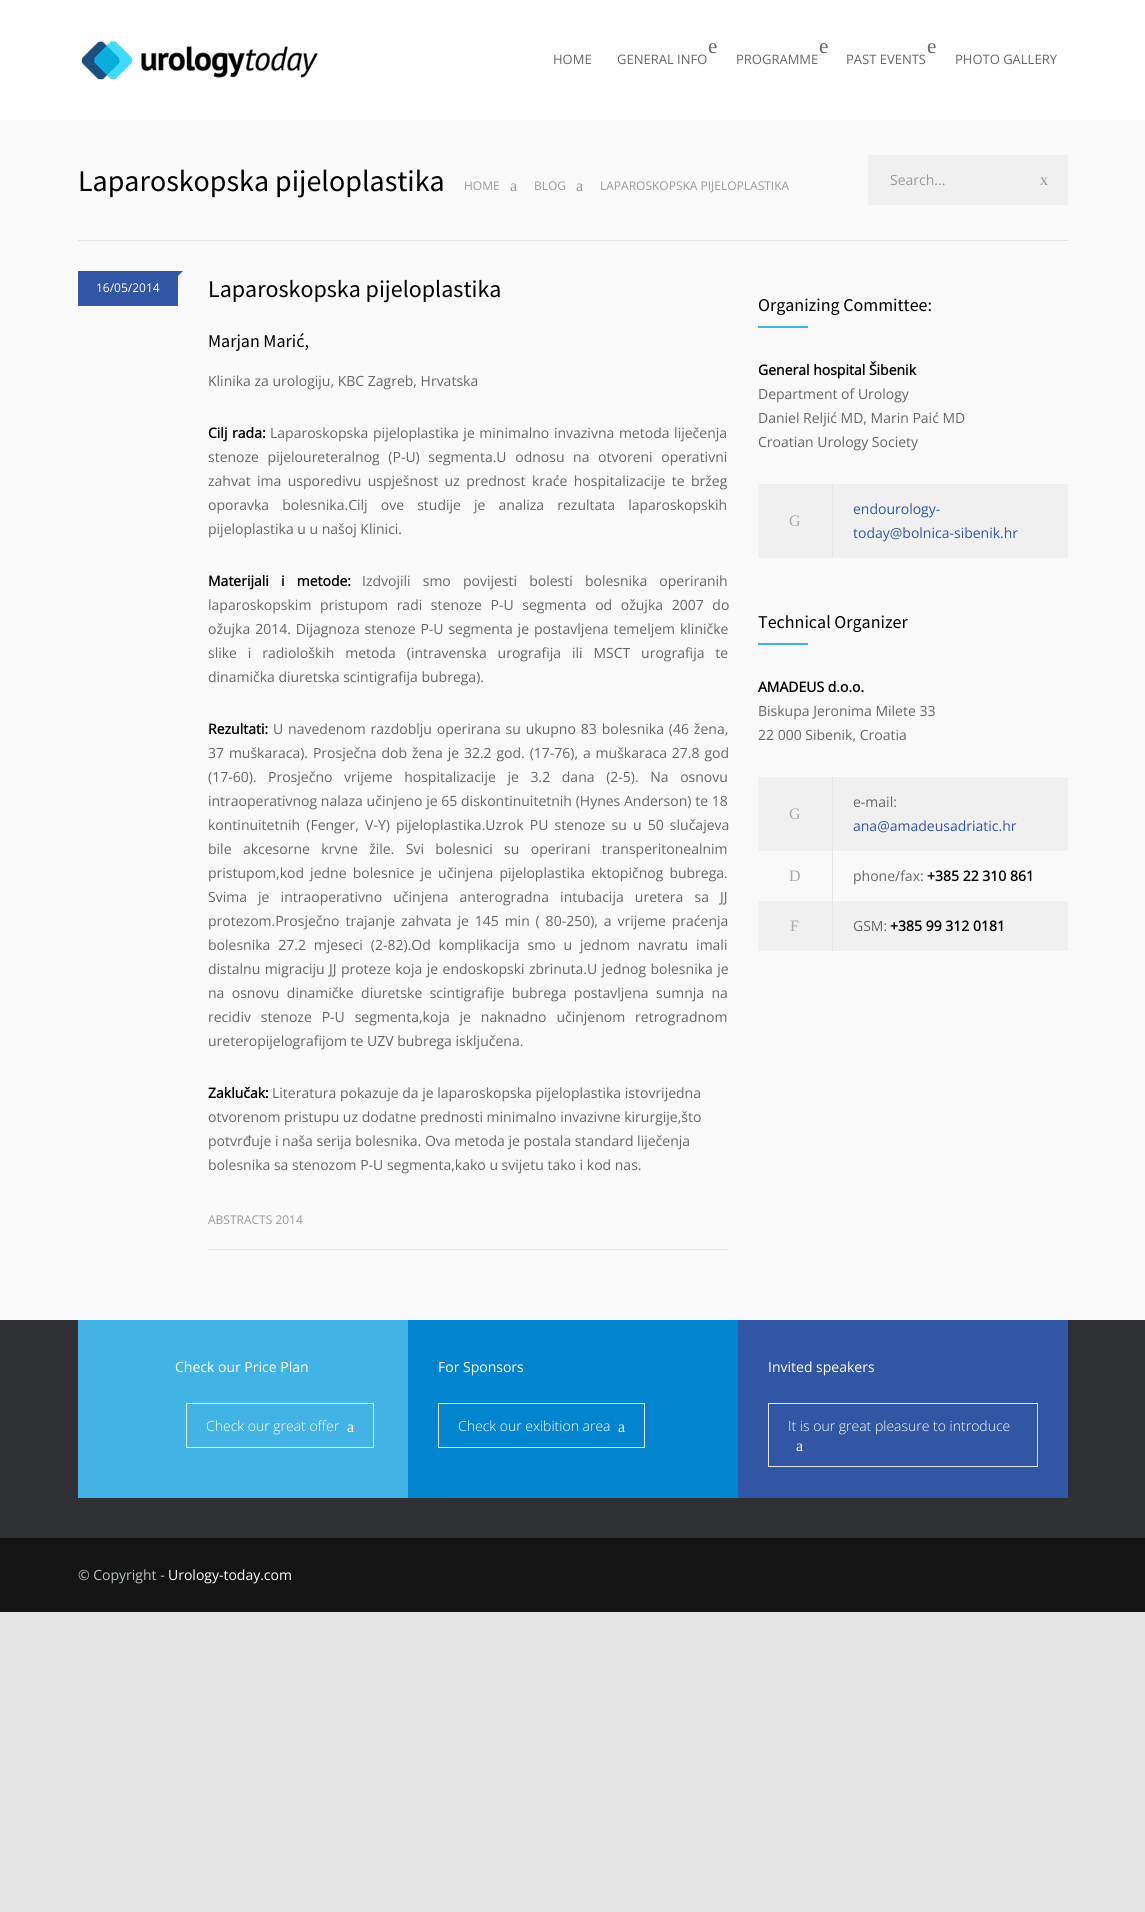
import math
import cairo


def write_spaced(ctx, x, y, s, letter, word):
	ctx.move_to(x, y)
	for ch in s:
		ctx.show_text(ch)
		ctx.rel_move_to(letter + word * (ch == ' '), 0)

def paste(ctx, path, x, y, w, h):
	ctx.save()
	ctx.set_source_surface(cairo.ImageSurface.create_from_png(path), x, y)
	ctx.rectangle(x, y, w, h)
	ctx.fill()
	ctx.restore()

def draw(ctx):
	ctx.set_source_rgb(0.898, 0.898, 0.898)
	ctx.paint()
	ctx.set_source_rgb(0.973, 0.973, 0.973)
	ctx.rectangle(0, 120, 1145, 1200)
	ctx.fill()
	ctx.set_source_rgb(1, 1, 1)
	ctx.rectangle(0, 0, 1145, 120)
	ctx.fill()
	paste(ctx, 'media/1.png', 81, 40, 238, 41)
	ctx.select_font_face('Open Sans')
	ctx.set_font_size(13)
	ctx.set_source_rgb(0.4, 0.4, 0.4)
	ctx.move_to(553, 64)
	ctx.show_text('HOME')
	ctx.select_font_face('Liberation Serif')
	ctx.set_font_size(21)
	ctx.move_to(708, 53)
	ctx.show_text('e')
	ctx.select_font_face('Open Sans')
	ctx.set_font_size(13)
	ctx.move_to(617, 64)
	ctx.show_text('GENERAL INFO')
	ctx.select_font_face('Liberation Serif')
	ctx.set_font_size(21)
	ctx.move_to(819, 53)
	ctx.show_text('e')
	ctx.select_font_face('Open Sans')
	ctx.set_font_size(13)
	ctx.move_to(736, 64)
	ctx.show_text('PROGRAMME')
	ctx.select_font_face('Liberation Serif')
	ctx.set_font_size(21)
	ctx.move_to(927, 53)
	ctx.show_text('e')
	ctx.select_font_face('Open Sans')
	ctx.set_font_size(13)
	ctx.move_to(846, 64)
	ctx.show_text('PAST EVENTS')
	ctx.move_to(955, 64)
	ctx.show_text('PHOTO GALLERY')
	ctx.set_source_rgb(0.898, 0.898, 0.898)
	ctx.rectangle(78, 240, 990, 1)
	ctx.fill()
	ctx.select_font_face('Source Sans Pro')
	ctx.set_font_size(30)
	ctx.set_source_rgb(0, 0, 0)
	ctx.move_to(78, 191)
	ctx.show_text('Laparoskopska pijeloplastika')
	ctx.select_font_face('Open Sans')
	ctx.set_font_size(12)
	ctx.set_source_rgb(0.6, 0.6, 0.6)
	ctx.move_to(464, 190)
	ctx.show_text('HOME')
	ctx.select_font_face('Liberation Serif')
	ctx.set_font_size(16)
	ctx.move_to(510, 191)
	ctx.show_text('a')
	ctx.select_font_face('Open Sans')
	ctx.set_font_size(12)
	ctx.move_to(534, 190)
	ctx.show_text('BLOG')
	ctx.select_font_face('Liberation Serif')
	ctx.set_font_size(16)
	ctx.move_to(576, 191)
	ctx.show_text('a')
	ctx.select_font_face('Open Sans')
	ctx.set_font_size(12)
	ctx.move_to(600, 190)
	ctx.show_text('LAPAROSKOPSKA PIJELOPLASTIKA')
	ctx.set_source_rgb(0.941, 0.941, 0.941)
	ctx.rectangle(868, 155, 200, 50)
	ctx.fill()
	ctx.set_font_size(14)
	ctx.set_source_rgb(0.6, 0.6, 0.6)
	ctx.move_to(890, 185)
	ctx.show_text('Search...')
	ctx.select_font_face('Liberation Serif')
	ctx.set_font_size(16)
	ctx.move_to(1040, 185)
	ctx.show_text('x')
	ctx.set_source_rgb(0.192, 0.337, 0.639)
	ctx.new_path()
	ctx.move_to(178, 271)
	ctx.line_to(183, 271)
	ctx.line_to(178, 276)
	ctx.close_path()
	ctx.fill()
	ctx.rectangle(78, 271, 100, 35)
	ctx.fill()
	ctx.select_font_face('Open Sans')
	ctx.set_font_size(12)
	ctx.set_source_rgb(1, 1, 1)
	ctx.move_to(96, 292)
	ctx.show_text('16/05/2014')
	ctx.set_source_rgb(0.898, 0.898, 0.898)
	ctx.rectangle(208, 1249, 520, 1)
	ctx.fill()
	ctx.select_font_face('Source Sans Pro')
	ctx.set_font_size(24)
	ctx.set_source_rgb(0, 0, 0)
	ctx.move_to(208, 297)
	ctx.show_text('Laparoskopska pijeloplastika')
	ctx.set_font_size(18)
	ctx.move_to(208, 347)
	ctx.show_text('Marjan Marić,')
	ctx.select_font_face('Open Sans')
	ctx.set_font_size(14)
	ctx.set_source_rgb(0.4, 0.4, 0.4)
	ctx.move_to(208, 386)
	ctx.show_text('Klinika za urologiju, KBC Zagreb, Hrvatska')
	ctx.select_font_face('Open Sans', cairo.FONT_SLANT_NORMAL, cairo.FONT_WEIGHT_BOLD)
	ctx.set_source_rgb(0, 0, 0)
	write_spaced(ctx, 208, 438, 'Cilj rada:', 0, 1)
	ctx.select_font_face('Open Sans')
	ctx.set_source_rgb(0.4, 0.4, 0.4)
	write_spaced(ctx, 270, 438, 'Laparoskopska pijeloplastika je minimalno invazivna metoda liječenja', 0, 1)
	write_spaced(ctx, 208, 462, 'stenoze pijeloureteralnog (P-U) segmenta.U odnosu na otvoreni operativni', 0, 5)
	write_spaced(ctx, 208, 486, 'zahvat ima usporedivu uspješnost uz prednost kraće hospitalizacije te bržeg', 0, 2.75)
	write_spaced(ctx, 208, 510, 'oporavka bolesnika.Cilj ove studije je analiza rezultata laparoskopskih', 0, 9.5)
	ctx.move_to(208, 534)
	ctx.show_text('pijeloplastika u u našoj Klinici.')
	ctx.select_font_face('Open Sans', cairo.FONT_SLANT_NORMAL, cairo.FONT_WEIGHT_BOLD)
	ctx.set_source_rgb(0, 0, 0)
	write_spaced(ctx, 208, 586, 'Materijali i metode:', 0, 8.5)
	ctx.select_font_face('Open Sans')
	ctx.set_source_rgb(0.4, 0.4, 0.4)
	write_spaced(ctx, 362, 586, 'Izdvojili smo povijesti bolesti bolesnika operiranih', 0, 8.5)
	write_spaced(ctx, 208, 610, 'laparoskopskim pristupom radi stenoze P-U segmenta od ožujka 2007 do', 0, 5)
	write_spaced(ctx, 208, 634, 'ožujka 2014. Dijagnoza stenoze P-U segmenta je postavljena temeljem kliničke', 0, 1.25)
	write_spaced(ctx, 208, 658, 'slike i radioloških metoda (intravenska urografija ili MSCT urografija te', 0, 7.25)
	ctx.move_to(208, 682)
	ctx.show_text('dinamička diuretska scintigrafija bubrega).')
	ctx.select_font_face('Open Sans', cairo.FONT_SLANT_NORMAL, cairo.FONT_WEIGHT_BOLD)
	ctx.set_source_rgb(0, 0, 0)
	ctx.move_to(208, 734)
	ctx.show_text('Rezultati:')
	ctx.select_font_face('Open Sans')
	ctx.set_source_rgb(0.4, 0.4, 0.4)
	write_spaced(ctx, 273, 734, 'U navedenom razdoblju operirana su ukupno 83 bolesnika (46 žena,', 0, 1.25)
	write_spaced(ctx, 208, 758, '37 muškaraca). Prosječna dob žena je 32.2 god. (17-76), a muškaraca 27.8 god', 0, 1.25)
	write_spaced(ctx, 208, 782, '(17-60). Prosječno vrijeme hospitalizacije je 3.2 dana (2-5). Na osnovu', 0, 8)
	write_spaced(ctx, 208, 806, 'intraoperativnog nalaza učinjeno je 65 diskontinuitetnih (Hynes Anderson) te 18', 0, 0.1)
	write_spaced(ctx, 208, 830, 'kontinuitetnih (Fenger, V-Y) pijeloplastika.Uzrok PU stenoze su u 50 slučajeva', 0, 2.5)
	write_spaced(ctx, 208, 854, 'bile akcesorne krvne žile. Svi bolesnici su operirani transperitonealnim', 0, 7.75)
	write_spaced(ctx, 208, 878, 'pristupom,kod jedne bolesnice je učinjena pijeloplastika ektopičnog bubrega.', 0, 2.5)
	write_spaced(ctx, 208, 902, 'Svima je intraoperativno učinjena anterogradna intubacija uretera sa JJ', 0, 7.5)
	write_spaced(ctx, 208, 926, 'protezom.Prosječno trajanje zahvata je 145 min ( 80-250), a vrijeme praćenja', 0, 2.25)
	write_spaced(ctx, 208, 950, 'bolesnika 27.2 mjeseci (2-82).Od komplikacija smo u jednom navratu imali', 0, 4.25)
	write_spaced(ctx, 208, 974, 'distalnu migraciju JJ proteze koja je endoskopski zbrinuta.U jednog bolesnika je', 0, 0.75)
	write_spaced(ctx, 208, 998, 'na osnovu dinamičke diuretske scintigrafije bubrega postavljena sumnja na', 0, 3.75)
	write_spaced(ctx, 208, 1022, 'recidiv stenoze P-U segmenta,koja je naknadno učinjenom retrogradnom', 0, 6.25)
	ctx.move_to(208, 1046)
	ctx.show_text('ureteropijelografijom te UZV bubrega isključena.')
	ctx.select_font_face('Open Sans', cairo.FONT_SLANT_NORMAL, cairo.FONT_WEIGHT_BOLD)
	ctx.set_source_rgb(0, 0, 0)
	ctx.move_to(208, 1098)
	ctx.show_text('Zaklučak:')
	ctx.select_font_face('Open Sans')
	ctx.set_source_rgb(0.4, 0.4, 0.4)
	for x, y, s in [
		(272, 1098, 'Literatura pokazuje da je laparoskopska pijeloplastika istovrijedna'),
		(208, 1122, 'otvorenom pristupu uz dodatne prednosti minimalno invazivne kirurgije,što'),
		(208, 1146, 'potvrđuje i naša serija bolesnika. Ova metoda je postala standard liječenja'),
		(208, 1170, 'bolesnika sa stenozom P-U segmenta,kako u svijetu tako i kod nas.'),
	]:
		ctx.move_to(x, y)
		ctx.show_text(s)
	ctx.set_font_size(12)
	ctx.set_source_rgb(0.6, 0.6, 0.6)
	ctx.move_to(208, 1224)
	ctx.show_text('ABSTRACTS 2014')
	ctx.select_font_face('Source Sans Pro')
	ctx.set_font_size(18)
	ctx.set_source_rgb(0, 0, 0)
	ctx.move_to(758, 311)
	ctx.show_text('Organizing Committee:')
	ctx.set_source_rgb(0.259, 0.702, 0.898)
	ctx.rectangle(758, 326, 50, 2)
	ctx.fill()
	ctx.select_font_face('Open Sans', cairo.FONT_SLANT_NORMAL, cairo.FONT_WEIGHT_BOLD)
	ctx.set_font_size(14)
	ctx.set_source_rgb(0, 0, 0)
	ctx.move_to(758, 375)
	ctx.show_text('General hospital Šibenik')
	ctx.select_font_face('Open Sans')
	ctx.set_source_rgb(0.4, 0.4, 0.4)
	for x, y, s in [
		(758, 399, 'Department of Urology'),
		(758, 423, 'Daniel Reljić MD, Marin Paić MD'),
		(758, 447, 'Croatian Urology Society'),
	]:
		ctx.move_to(x, y)
		ctx.show_text(s)
	ctx.set_source_rgb(0.941, 0.941, 0.941)
	ctx.rectangle(758, 484, 310, 74)
	ctx.fill()
	ctx.set_source_rgb(0.898, 0.898, 0.898)
	ctx.rectangle(832, 484, 1, 74)
	ctx.fill()
	ctx.select_font_face('Liberation Serif')
	ctx.set_font_size(16)
	ctx.set_source_rgb(0.667, 0.667, 0.667)
	ctx.move_to(789, 526)
	ctx.show_text('G')
	ctx.select_font_face('Open Sans')
	ctx.set_font_size(14)
	ctx.set_source_rgb(0.192, 0.337, 0.639)
	ctx.move_to(853, 514)
	ctx.show_text('endourology-')
	ctx.move_to(853, 538)
	ctx.show_text('today@bolnica-sibenik.hr')
	ctx.select_font_face('Source Sans Pro')
	ctx.set_font_size(18)
	ctx.set_source_rgb(0, 0, 0)
	ctx.move_to(758, 628)
	ctx.show_text('Technical Organizer')
	ctx.set_source_rgb(0.259, 0.702, 0.898)
	ctx.rectangle(758, 643, 50, 2)
	ctx.fill()
	ctx.select_font_face('Open Sans', cairo.FONT_SLANT_NORMAL, cairo.FONT_WEIGHT_BOLD)
	ctx.set_font_size(14)
	ctx.set_source_rgb(0, 0, 0)
	ctx.move_to(758, 692)
	ctx.show_text('AMADEUS d.o.o.')
	ctx.select_font_face('Open Sans')
	ctx.set_source_rgb(0.4, 0.4, 0.4)
	ctx.move_to(758, 716)
	ctx.show_text('Biskupa Jeronima Milete 33')
	ctx.move_to(758, 740)
	ctx.show_text('22 000 Sibenik, Croatia')
	ctx.set_source_rgb(0.941, 0.941, 0.941)
	ctx.rectangle(758, 777, 310, 74)
	ctx.fill()
	ctx.set_source_rgb(0.898, 0.898, 0.898)
	ctx.rectangle(832, 777, 1, 124)
	ctx.fill()
	ctx.select_font_face('Liberation Serif')
	ctx.set_font_size(16)
	ctx.set_source_rgb(0.667, 0.667, 0.667)
	ctx.move_to(789, 819)
	ctx.show_text('G')
	ctx.select_font_face('Open Sans')
	ctx.set_font_size(14)
	ctx.set_source_rgb(0.4, 0.4, 0.4)
	ctx.move_to(853, 807)
	ctx.show_text('e-mail:')
	ctx.set_source_rgb(0.192, 0.337, 0.639)
	ctx.move_to(853, 831)
	ctx.show_text('ana@amadeusadriatic.hr')
	ctx.select_font_face('Liberation Serif')
	ctx.set_font_size(16)
	ctx.set_source_rgb(0.667, 0.667, 0.667)
	ctx.move_to(789, 881)
	ctx.show_text('D')
	ctx.select_font_face('Open Sans')
	ctx.set_font_size(14)
	ctx.set_source_rgb(0.4, 0.4, 0.4)
	ctx.move_to(853, 881)
	ctx.show_text('phone/fax:')
	ctx.select_font_face('Open Sans', cairo.FONT_SLANT_NORMAL, cairo.FONT_WEIGHT_BOLD)
	ctx.set_source_rgb(0, 0, 0)
	ctx.move_to(927, 881)
	ctx.show_text('+385 22 310 861')
	ctx.set_source_rgb(0.941, 0.941, 0.941)
	ctx.rectangle(758, 901, 310, 50)
	ctx.fill()
	ctx.set_source_rgb(0.898, 0.898, 0.898)
	ctx.rectangle(832, 901, 1, 50)
	ctx.fill()
	ctx.select_font_face('Liberation Serif')
	ctx.set_font_size(16)
	ctx.set_source_rgb(0.667, 0.667, 0.667)
	ctx.move_to(790, 931)
	ctx.show_text('F')
	ctx.select_font_face('Open Sans')
	ctx.set_font_size(14)
	ctx.set_source_rgb(0.4, 0.4, 0.4)
	ctx.move_to(853, 931)
	ctx.show_text('GSM:')
	ctx.select_font_face('Open Sans', cairo.FONT_SLANT_NORMAL, cairo.FONT_WEIGHT_BOLD)
	ctx.set_source_rgb(0, 0, 0)
	ctx.move_to(890, 931)
	ctx.show_text('+385 99 312 0181')
	ctx.set_source_rgb(0.18, 0.188, 0.2)
	ctx.rectangle(0, 1320, 1145, 218)
	ctx.fill()
	ctx.set_source_rgb(0.259, 0.702, 0.898)
	ctx.rectangle(78, 1320, 330, 178)
	ctx.fill()
	ctx.select_font_face('Open Sans')
	ctx.set_source_rgb(1, 1, 1)
	ctx.move_to(175, 1372)
	ctx.show_text('Check our Price Plan')
	ctx.rectangle(186.5, 1403.5, 187, 44)
	ctx.set_source_rgb(0.898, 0.898, 0.898)
	ctx.set_line_width(1)
	ctx.stroke()
	ctx.select_font_face('Open Sans Light')
	ctx.set_source_rgb(1, 1, 1)
	ctx.move_to(206, 1431)
	ctx.show_text('Check our great offer')
	ctx.select_font_face('Liberation Serif')
	ctx.set_font_size(16)
	ctx.move_to(347, 1432)
	ctx.show_text('a')
	ctx.set_source_rgb(0.012, 0.518, 0.808)
	ctx.rectangle(408, 1320, 330, 178)
	ctx.fill()
	ctx.select_font_face('Open Sans')
	ctx.set_font_size(14)
	ctx.set_source_rgb(1, 1, 1)
	ctx.move_to(438, 1372)
	ctx.show_text('For Sponsors')
	ctx.rectangle(438.5, 1403.5, 206, 44)
	ctx.set_source_rgb(0.898, 0.898, 0.898)
	ctx.stroke()
	ctx.select_font_face('Open Sans Light')
	ctx.set_source_rgb(1, 1, 1)
	ctx.move_to(458, 1431)
	ctx.show_text('Check our exibition area')
	ctx.select_font_face('Liberation Serif')
	ctx.set_font_size(16)
	ctx.move_to(618, 1432)
	ctx.show_text('a')
	ctx.set_source_rgb(0.192, 0.337, 0.639)
	ctx.rectangle(738, 1320, 330, 178)
	ctx.fill()
	ctx.select_font_face('Open Sans')
	ctx.set_font_size(14)
	ctx.set_source_rgb(1, 1, 1)
	ctx.move_to(768, 1372)
	ctx.show_text('Invited speakers')
	ctx.rectangle(768.5, 1403.5, 269, 63)
	ctx.set_source_rgb(0.898, 0.898, 0.898)
	ctx.stroke()
	ctx.select_font_face('Open Sans Light')
	ctx.set_source_rgb(1, 1, 1)
	ctx.move_to(788, 1431)
	ctx.show_text('It is our great pleasure to introduce')
	ctx.select_font_face('Liberation Serif')
	ctx.set_font_size(16)
	ctx.move_to(796, 1451)
	ctx.show_text('a')
	ctx.set_source_rgb(0.082, 0.082, 0.082)
	ctx.rectangle(0, 1538, 1145, 74)
	ctx.fill()
	ctx.select_font_face('Open Sans')
	ctx.set_font_size(14)
	ctx.set_source_rgb(0.729, 0.753, 0.773)
	ctx.move_to(78, 1580)
	ctx.show_text('© Copyright -')
	ctx.set_source_rgb(1, 1, 1)
	ctx.move_to(168, 1580)
	ctx.show_text('Urology-today.com')


surface = cairo.ImageSurface(cairo.FORMAT_RGB24, 1145, 1912)
ctx = cairo.Context(surface)
options = cairo.FontOptions()
options.set_hint_metrics(cairo.HINT_METRICS_OFF)
options.set_hint_style(cairo.HINT_STYLE_NONE)
ctx.set_font_options(options)
ctx.set_miter_limit(4)
draw(ctx)
surface.write_to_png('image.png')
